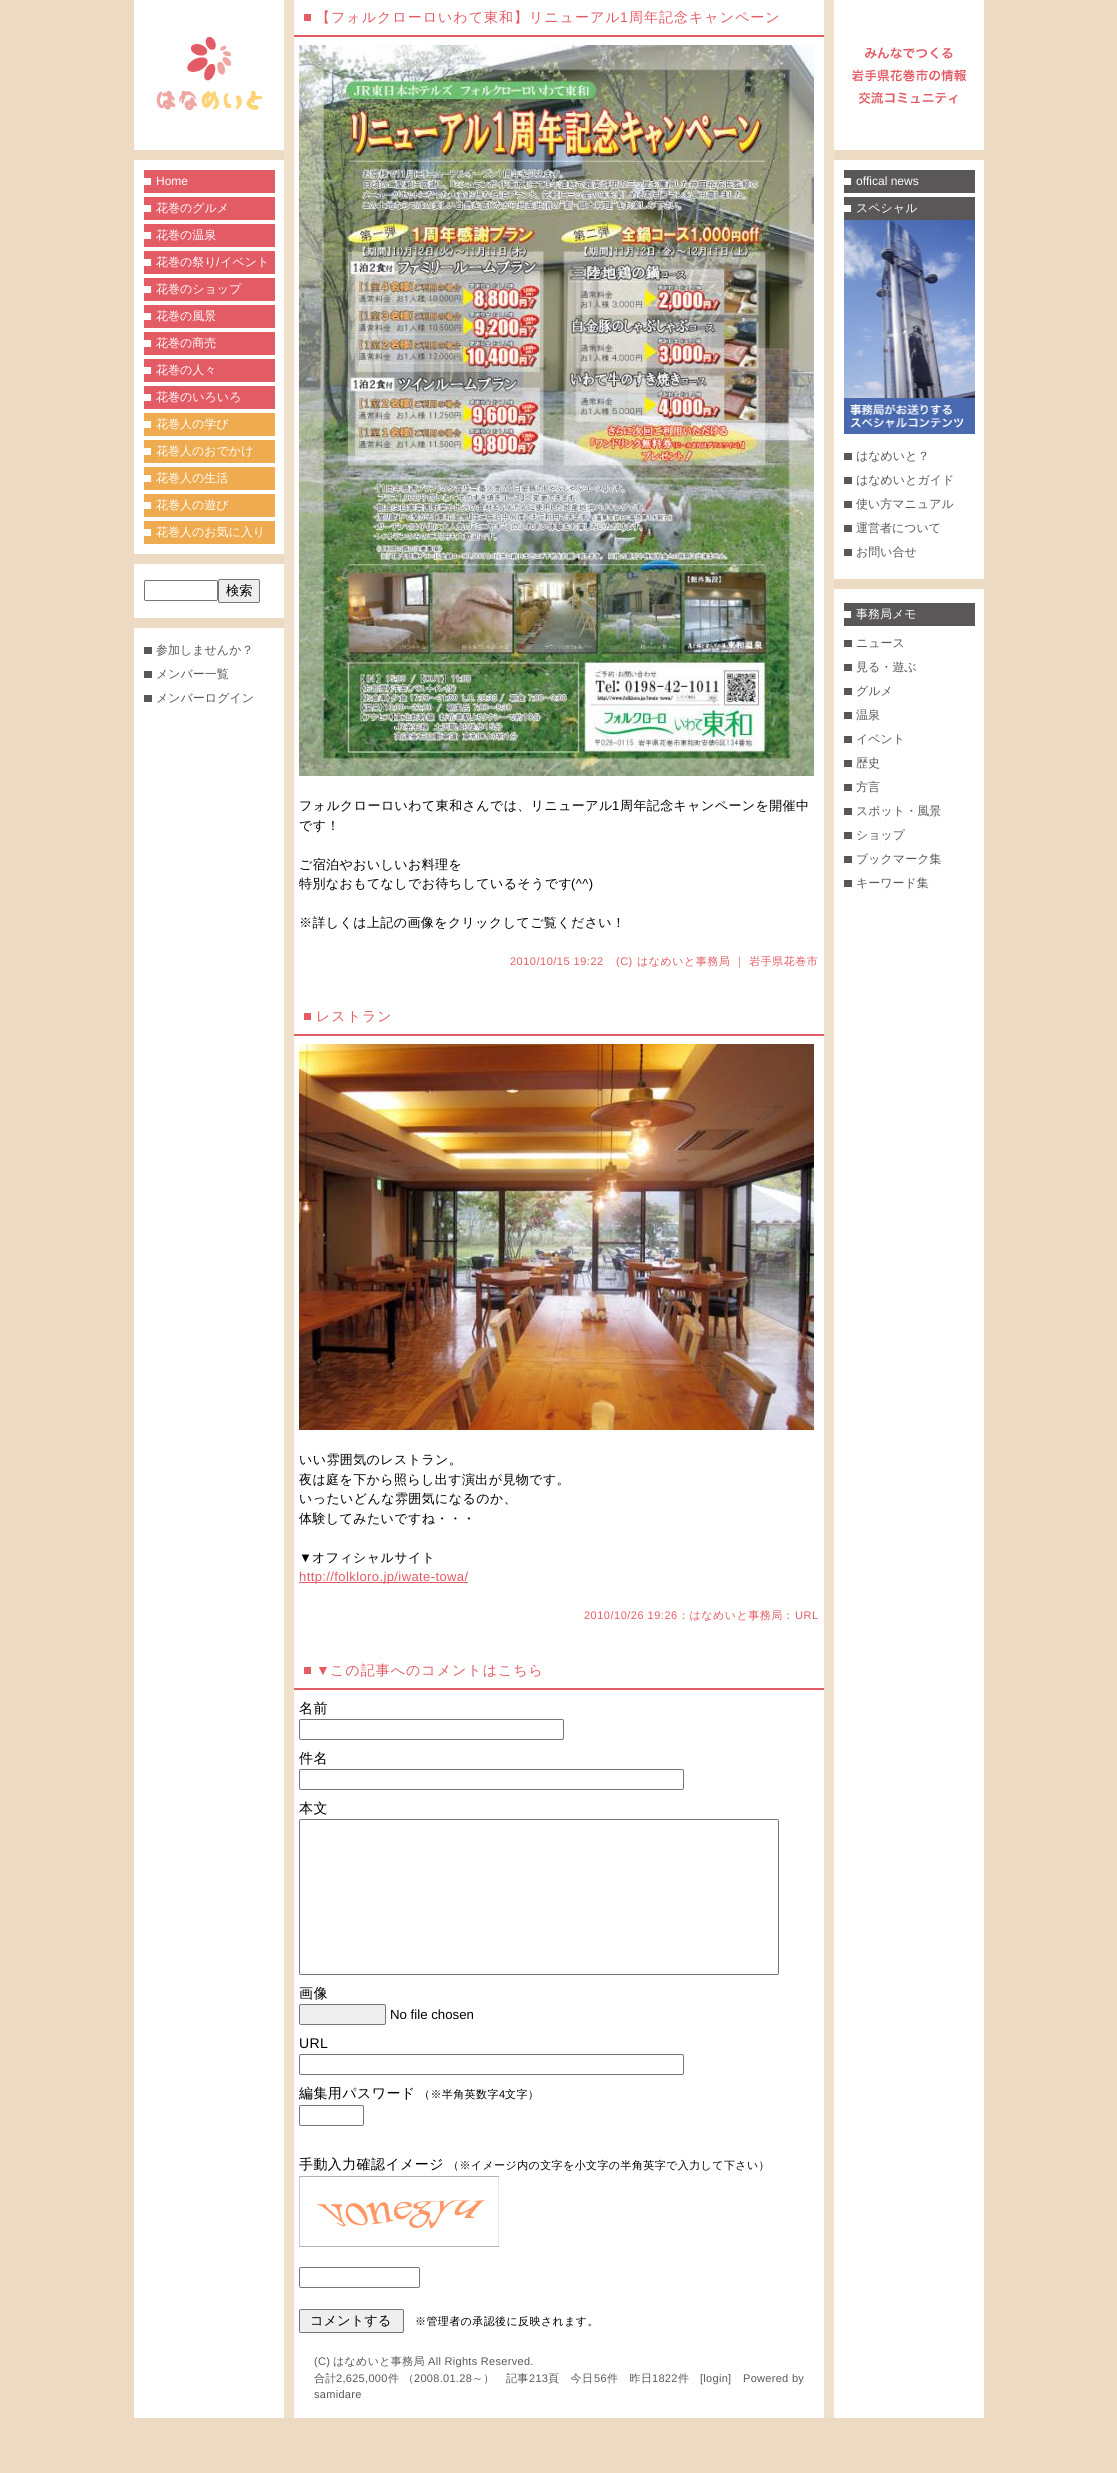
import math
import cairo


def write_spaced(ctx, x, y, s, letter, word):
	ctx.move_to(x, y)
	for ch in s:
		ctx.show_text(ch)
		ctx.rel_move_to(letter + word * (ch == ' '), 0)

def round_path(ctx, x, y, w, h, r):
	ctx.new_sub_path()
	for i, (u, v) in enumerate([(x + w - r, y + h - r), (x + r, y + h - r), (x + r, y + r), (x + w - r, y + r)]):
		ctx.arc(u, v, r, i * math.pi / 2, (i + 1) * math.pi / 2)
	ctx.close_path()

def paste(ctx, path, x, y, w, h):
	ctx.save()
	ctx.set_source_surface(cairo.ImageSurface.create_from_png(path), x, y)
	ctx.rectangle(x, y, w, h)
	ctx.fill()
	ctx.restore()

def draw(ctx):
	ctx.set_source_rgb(0.929, 0.855, 0.761)
	ctx.paint()
	paste(ctx, 'media/1.png', 134, 0, 850, 2418)
	ctx.set_source_rgb(0.929, 0.855, 0.761)
	ctx.rectangle(134, 150, 150, 10)
	ctx.fill()
	paste(ctx, 'media/2.png', 156, 37, 108, 76)
	paste(ctx, 'media/3.png', 144, 170, 131, 23)
	ctx.select_font_face('Liberation Sans')
	ctx.set_font_size(12)
	ctx.set_source_rgb(1, 1, 1)
	ctx.move_to(156, 185)
	ctx.show_text('Home')
	paste(ctx, 'media/3.png', 144, 197, 131, 23)
	ctx.select_font_face('WenQuanYi Zen Hei Medium')
	ctx.move_to(156, 212)
	ctx.show_text('花巻のグルメ')
	paste(ctx, 'media/3.png', 144, 224, 131, 23)
	ctx.move_to(156, 239)
	ctx.show_text('花巻の温泉')
	paste(ctx, 'media/3.png', 144, 251, 131, 23)
	ctx.move_to(156, 266)
	ctx.show_text('花巻の祭り イベント')
	ctx.select_font_face('Liberation Sans')
	ctx.move_to(216, 266)
	ctx.show_text('/')
	paste(ctx, 'media/3.png', 144, 278, 131, 23)
	ctx.select_font_face('WenQuanYi Zen Hei Medium')
	ctx.move_to(156, 293)
	ctx.show_text('花巻のショップ')
	paste(ctx, 'media/3.png', 144, 305, 131, 23)
	ctx.move_to(156, 320)
	ctx.show_text('花巻の風景')
	paste(ctx, 'media/3.png', 144, 332, 131, 23)
	ctx.move_to(156, 347)
	ctx.show_text('花巻の商売')
	paste(ctx, 'media/3.png', 144, 359, 131, 23)
	ctx.move_to(156, 374)
	ctx.show_text('花巻の人々')
	paste(ctx, 'media/3.png', 144, 386, 131, 23)
	ctx.move_to(156, 401)
	ctx.show_text('花巻のいろいろ')
	paste(ctx, 'media/4.png', 144, 413, 131, 23)
	ctx.move_to(156, 428)
	ctx.show_text('花巻人の学び')
	paste(ctx, 'media/4.png', 144, 440, 131, 23)
	ctx.move_to(156, 455)
	ctx.show_text('花巻人のおでかけ')
	paste(ctx, 'media/4.png', 144, 467, 131, 23)
	ctx.move_to(156, 482)
	ctx.show_text('花巻人の生活')
	paste(ctx, 'media/4.png', 144, 494, 131, 23)
	ctx.move_to(156, 509)
	ctx.show_text('花巻人の遊び')
	paste(ctx, 'media/4.png', 144, 521, 131, 23)
	ctx.move_to(156, 536)
	ctx.show_text('花巻人のお気に入り')
	ctx.set_source_rgb(0.929, 0.855, 0.761)
	ctx.rectangle(134, 554, 150, 10)
	ctx.fill()
	ctx.rectangle(134, 618, 150, 10)
	ctx.fill()
	round_path(ctx, 144.5, 580.5, 73, 20, 1.5)
	ctx.set_source_rgb(0.463, 0.463, 0.463)
	ctx.set_line_width(1)
	ctx.stroke()
	ctx.set_source_rgb(0.937, 0.937, 0.937)
	round_path(ctx, 218.5, 579.5, 41, 23, 1.5)
	ctx.fill_preserve()
	ctx.set_source_rgb(0.463, 0.463, 0.463)
	ctx.stroke()
	ctx.set_font_size(13.25)
	ctx.set_source_rgb(0, 0, 0)
	ctx.move_to(226, 595)
	ctx.show_text('検索')
	ctx.set_source_rgb(0.349, 0.341, 0.345)
	ctx.rectangle(144, 647, 8, 7)
	ctx.fill()
	ctx.set_font_size(12)
	ctx.set_source_rgb(0.349, 0.341, 0.341)
	ctx.move_to(156, 654)
	ctx.show_text('参加しませんか？')
	ctx.set_source_rgb(0.349, 0.341, 0.345)
	ctx.rectangle(144, 671, 8, 7)
	ctx.fill()
	ctx.set_source_rgb(0.349, 0.341, 0.341)
	ctx.move_to(156, 678)
	ctx.show_text('メンバー一覧')
	ctx.set_source_rgb(0.349, 0.341, 0.345)
	ctx.rectangle(144, 695, 8, 7)
	ctx.fill()
	ctx.set_source_rgb(0.349, 0.341, 0.341)
	ctx.move_to(156, 702)
	ctx.show_text('メンバーログイン')
	paste(ctx, 'media/5.png', 304, 14, 7, 7)
	ctx.set_source_rgb(0.89, 0.361, 0.396)
	ctx.rectangle(294, 35, 530, 2)
	ctx.fill()
	ctx.set_font_size(14)
	write_spaced(ctx, 316, 22, '【フォルクローロいわて東和】リニューアル', 1, 0)
	ctx.select_font_face('Liberation Sans')
	write_spaced(ctx, 620, 22, '1', 1, 0)
	ctx.select_font_face('WenQuanYi Zen Hei Medium')
	write_spaced(ctx, 629, 22, '周年記念キャンペーン', 1, 0)
	paste(ctx, 'media/6.png', 299, 45, 515, 731)
	ctx.set_font_size(13)
	ctx.set_source_rgb(0, 0, 0)
	write_spaced(ctx, 299, 810, 'フォルクローロいわて東和さんでは、リニューアル', 0.4, 0)
	ctx.select_font_face('Liberation Sans')
	write_spaced(ctx, 612, 810, '1', 0.4, 0)
	ctx.select_font_face('WenQuanYi Zen Hei Medium')
	for x, y, s in [
		(620, 810, '周年記念キャンペーンを開催中'),
		(299, 830, 'です！'),
		(299, 869, 'ご宿泊やおいしいお料理を'),
		(299, 888, '特別なおもてなしでお待ちしているそうです'),
	]:
		write_spaced(ctx, x, y, s, 0.4, 0)
	ctx.select_font_face('Liberation Sans')
	write_spaced(ctx, 571, 888, '(^^)', 0.4, 0)
	ctx.select_font_face('WenQuanYi Zen Hei Medium')
	write_spaced(ctx, 299, 927, '※詳しくは上記の画像をクリックしてご覧ください！', 0.4, 0)
	ctx.select_font_face('Liberation Sans')
	ctx.set_font_size(11)
	ctx.set_source_rgb(0.89, 0.361, 0.396)
	write_spaced(ctx, 510, 965, '2010/10/15 19:22', 0.5, 0)
	write_spaced(ctx, 616, 965, '(C)', 0.5, 0)
	ctx.select_font_face('WenQuanYi Zen Hei Medium')
	write_spaced(ctx, 637, 965, 'はなめいと事務局 ｜ 岩手県花巻市', 0.5, 0)
	paste(ctx, 'media/5.png', 304, 1013, 7, 7)
	ctx.rectangle(294, 1034, 530, 2)
	ctx.fill()
	ctx.set_font_size(14)
	write_spaced(ctx, 316, 1021, 'レストラン', 1, 0)
	paste(ctx, 'media/7.png', 299, 1044, 515, 386)
	ctx.set_font_size(13)
	ctx.set_source_rgb(0, 0, 0)
	for x, y, s in [
		(299, 1464, 'いい雰囲気のレストラン。'),
		(299, 1484, '夜は庭を下から照らし出す演出が見物です。'),
		(299, 1503, 'いったいどんな雰囲気になるのか、'),
		(299, 1523, '体験してみたいですね・・・'),
	]:
		write_spaced(ctx, x, y, s, 0.4, 0)
	ctx.select_font_face('Liberation Sans')
	write_spaced(ctx, 299, 1562, '▼', 0.4, 0)
	ctx.select_font_face('WenQuanYi Zen Hei Medium')
	write_spaced(ctx, 312, 1562, 'オフィシャルサイト', 0.4, 0)
	ctx.set_source_rgb(0.89, 0.361, 0.396)
	ctx.rectangle(299, 1582, 169, 1)
	ctx.fill()
	ctx.select_font_face('Liberation Sans')
	write_spaced(ctx, 299, 1581, 'http://folkloro.jp/iwate-towa/', 0.4, 0)
	ctx.set_font_size(11)
	write_spaced(ctx, 584, 1619, '2010/10/26 19:26', 0.5, 0)
	ctx.select_font_face('WenQuanYi Zen Hei Medium')
	write_spaced(ctx, 678, 1619, '：はなめいと事務局：', 0.5, 0)
	ctx.select_font_face('Liberation Sans')
	write_spaced(ctx, 795, 1619, 'URL', 0.5, 0)
	paste(ctx, 'media/5.png', 304, 1667, 7, 7)
	ctx.rectangle(294, 1688, 530, 2)
	ctx.fill()
	ctx.set_font_size(14)
	write_spaced(ctx, 316, 1675, '▼', 1, 0)
	ctx.select_font_face('WenQuanYi Zen Hei Medium')
	write_spaced(ctx, 330, 1675, 'この記事へのコメントはこちら', 1, 0)
	ctx.set_source_rgb(0, 0, 0)
	write_spaced(ctx, 299, 1713, '名前', 0.4, 0)
	round_path(ctx, 299.5, 1719.5, 264, 20, 1.5)
	ctx.set_source_rgb(0.463, 0.463, 0.463)
	ctx.stroke()
	ctx.set_source_rgb(0, 0, 0)
	write_spaced(ctx, 299, 1763, '件名', 0.4, 0)
	round_path(ctx, 299.5, 1769.5, 384, 20, 1.5)
	ctx.set_source_rgb(0.463, 0.463, 0.463)
	ctx.stroke()
	ctx.set_source_rgb(0, 0, 0)
	write_spaced(ctx, 299, 1813, '本文', 0.4, 0)
	round_path(ctx, 299.5, 1819.5, 479, 155, 1.5)
	ctx.set_source_rgb(0.463, 0.463, 0.463)
	ctx.stroke()
	ctx.set_source_rgb(0, 0, 0)
	write_spaced(ctx, 299, 1998, '画像', 0.4, 0)
	ctx.set_source_rgb(0.937, 0.937, 0.937)
	round_path(ctx, 299.5, 2004.5, 86, 20, 1.5)
	ctx.fill_preserve()
	ctx.set_source_rgb(0.463, 0.463, 0.463)
	ctx.stroke()
	ctx.select_font_face('Liberation Sans')
	ctx.set_font_size(13.25)
	ctx.set_source_rgb(0, 0, 0)
	ctx.move_to(390, 2019)
	ctx.show_text('No file chosen')
	ctx.set_font_size(14)
	write_spaced(ctx, 299, 2048, 'URL', 0.4, 0)
	round_path(ctx, 299.5, 2054.5, 384, 20, 1.5)
	ctx.set_source_rgb(0.463, 0.463, 0.463)
	ctx.stroke()
	ctx.select_font_face('WenQuanYi Zen Hei Medium')
	ctx.set_source_rgb(0, 0, 0)
	write_spaced(ctx, 299, 2098, '編集用パスワード', 0.4, 0)
	ctx.set_font_size(11)
	write_spaced(ctx, 419, 2098, '（※半角英数字', 0.4, 0)
	ctx.select_font_face('Liberation Sans')
	write_spaced(ctx, 499, 2098, '4', 0.4, 0)
	ctx.select_font_face('WenQuanYi Zen Hei Medium')
	write_spaced(ctx, 505, 2098, '文字）', 0.4, 0)
	round_path(ctx, 299.5, 2105.5, 64, 20, 1.5)
	ctx.set_source_rgb(0.463, 0.463, 0.463)
	ctx.stroke()
	ctx.set_font_size(14)
	ctx.set_source_rgb(0, 0, 0)
	write_spaced(ctx, 299, 2169, '手動入力確認イメージ', 0.4, 0)
	ctx.set_font_size(11)
	write_spaced(ctx, 448, 2169, '（※イメージ内の文字を小文字の半角英字で入力して下さい）', 0.4, 0)
	paste(ctx, 'media/8.png', 299, 2176, 200, 71)
	round_path(ctx, 299.5, 2267.5, 120, 20, 1.5)
	ctx.set_source_rgb(0.463, 0.463, 0.463)
	ctx.stroke()
	ctx.set_source_rgb(0.937, 0.937, 0.937)
	round_path(ctx, 299.5, 2309.5, 104, 23, 1.5)
	ctx.fill_preserve()
	ctx.set_source_rgb(0.463, 0.463, 0.463)
	ctx.stroke()
	ctx.set_font_size(13.25)
	ctx.set_source_rgb(0, 0, 0)
	ctx.move_to(310, 2325)
	ctx.show_text('コメントする')
	ctx.set_font_size(11)
	write_spaced(ctx, 415, 2325, '※管理者の承認後に反映されます。', 0.4, 0)
	ctx.set_source_rgb(0.929, 0.855, 0.761)
	ctx.rectangle(834, 150, 150, 10)
	ctx.fill()
	paste(ctx, 'media/9.png', 852, 47, 115, 57)
	paste(ctx, 'media/10.png', 844, 170, 131, 23)
	ctx.select_font_face('Liberation Sans')
	ctx.set_font_size(12)
	ctx.set_source_rgb(1, 1, 1)
	ctx.move_to(856, 185)
	ctx.show_text('offical news')
	paste(ctx, 'media/10.png', 844, 197, 131, 23)
	ctx.select_font_face('WenQuanYi Zen Hei Medium')
	ctx.move_to(856, 212)
	ctx.show_text('スペシャル')
	paste(ctx, 'media/11.png', 844, 220, 131, 214)
	ctx.set_source_rgb(0.349, 0.341, 0.345)
	ctx.rectangle(844, 453, 8, 7)
	ctx.fill()
	ctx.set_source_rgb(0.349, 0.341, 0.341)
	ctx.move_to(856, 460)
	ctx.show_text('はなめいと？')
	ctx.set_source_rgb(0.349, 0.341, 0.345)
	ctx.rectangle(844, 477, 8, 7)
	ctx.fill()
	ctx.set_source_rgb(0.349, 0.341, 0.341)
	ctx.move_to(856, 484)
	ctx.show_text('はなめいとガイド')
	ctx.set_source_rgb(0.349, 0.341, 0.345)
	ctx.rectangle(844, 501, 8, 7)
	ctx.fill()
	ctx.set_source_rgb(0.349, 0.341, 0.341)
	ctx.move_to(856, 508)
	ctx.show_text('使い方マニュアル')
	ctx.set_source_rgb(0.349, 0.341, 0.345)
	ctx.rectangle(844, 525, 8, 7)
	ctx.fill()
	ctx.set_source_rgb(0.349, 0.341, 0.341)
	ctx.move_to(856, 532)
	ctx.show_text('運営者について')
	ctx.set_source_rgb(0.349, 0.341, 0.345)
	ctx.rectangle(844, 549, 8, 7)
	ctx.fill()
	ctx.set_source_rgb(0.349, 0.341, 0.341)
	ctx.move_to(856, 556)
	ctx.show_text('お問い合せ')
	ctx.set_source_rgb(0.929, 0.855, 0.761)
	ctx.rectangle(834, 579, 150, 10)
	ctx.fill()
	paste(ctx, 'media/10.png', 844, 603, 131, 23)
	ctx.set_source_rgb(1, 1, 1)
	ctx.move_to(856, 618)
	ctx.show_text('事務局メモ')
	ctx.set_source_rgb(0.349, 0.341, 0.345)
	ctx.rectangle(844, 640, 8, 7)
	ctx.fill()
	ctx.set_source_rgb(0.349, 0.341, 0.341)
	ctx.move_to(856, 647)
	ctx.show_text('ニュース')
	ctx.set_source_rgb(0.349, 0.341, 0.345)
	ctx.rectangle(844, 664, 8, 7)
	ctx.fill()
	ctx.set_source_rgb(0.349, 0.341, 0.341)
	ctx.move_to(856, 671)
	ctx.show_text('見る・遊ぶ')
	ctx.set_source_rgb(0.349, 0.341, 0.345)
	ctx.rectangle(844, 688, 8, 7)
	ctx.fill()
	ctx.set_source_rgb(0.349, 0.341, 0.341)
	ctx.move_to(856, 695)
	ctx.show_text('グルメ')
	ctx.set_source_rgb(0.349, 0.341, 0.345)
	ctx.rectangle(844, 712, 8, 7)
	ctx.fill()
	ctx.set_source_rgb(0.349, 0.341, 0.341)
	ctx.move_to(856, 719)
	ctx.show_text('温泉')
	ctx.set_source_rgb(0.349, 0.341, 0.345)
	ctx.rectangle(844, 736, 8, 7)
	ctx.fill()
	ctx.set_source_rgb(0.349, 0.341, 0.341)
	ctx.move_to(856, 743)
	ctx.show_text('イベント')
	ctx.set_source_rgb(0.349, 0.341, 0.345)
	ctx.rectangle(844, 760, 8, 7)
	ctx.fill()
	ctx.set_source_rgb(0.349, 0.341, 0.341)
	ctx.move_to(856, 767)
	ctx.show_text('歴史')
	ctx.set_source_rgb(0.349, 0.341, 0.345)
	ctx.rectangle(844, 784, 8, 7)
	ctx.fill()
	ctx.set_source_rgb(0.349, 0.341, 0.341)
	ctx.move_to(856, 791)
	ctx.show_text('方言')
	ctx.set_source_rgb(0.349, 0.341, 0.345)
	ctx.rectangle(844, 808, 8, 7)
	ctx.fill()
	ctx.set_source_rgb(0.349, 0.341, 0.341)
	ctx.move_to(856, 815)
	ctx.show_text('スポット・風景')
	ctx.set_source_rgb(0.349, 0.341, 0.345)
	ctx.rectangle(844, 832, 8, 7)
	ctx.fill()
	ctx.set_source_rgb(0.349, 0.341, 0.341)
	ctx.move_to(856, 839)
	ctx.show_text('ショップ')
	ctx.set_source_rgb(0.349, 0.341, 0.345)
	ctx.rectangle(844, 856, 8, 7)
	ctx.fill()
	ctx.set_source_rgb(0.349, 0.341, 0.341)
	ctx.move_to(856, 863)
	ctx.show_text('ブックマーク集')
	ctx.set_source_rgb(0.349, 0.341, 0.345)
	ctx.rectangle(844, 880, 8, 7)
	ctx.fill()
	ctx.set_source_rgb(0.349, 0.341, 0.341)
	ctx.move_to(856, 887)
	ctx.show_text('キーワード集')
	ctx.select_font_face('Liberation Sans')
	ctx.set_font_size(11)
	write_spaced(ctx, 314, 2365, '(C)', 0.3, 0)
	ctx.select_font_face('WenQuanYi Zen Hei Medium')
	write_spaced(ctx, 333, 2365, 'はなめいと事務局', 0.3, 0)
	ctx.select_font_face('Liberation Sans')
	write_spaced(ctx, 428, 2365, 'All Rights Reserved.', 0.3, 0)
	ctx.select_font_face('WenQuanYi Zen Hei Medium')
	write_spaced(ctx, 314, 2382, '合計', 0.3, 0)
	ctx.select_font_face('Liberation Sans')
	write_spaced(ctx, 336, 2382, '2,625,000', 0.3, 0)
	ctx.select_font_face('WenQuanYi Zen Hei Medium')
	write_spaced(ctx, 388, 2382, '件 （', 0.3, 0)
	ctx.select_font_face('Liberation Sans')
	write_spaced(ctx, 414, 2382, '2008.01.28', 0.3, 0)
	ctx.select_font_face('WenQuanYi Zen Hei Medium')
	write_spaced(ctx, 472, 2382, '～）　記事', 0.3, 0)
	ctx.select_font_face('Liberation Sans')
	write_spaced(ctx, 529, 2382, '213', 0.3, 0)
	ctx.select_font_face('WenQuanYi Zen Hei Medium')
	write_spaced(ctx, 548, 2382, '頁　今日', 0.3, 0)
	ctx.select_font_face('Liberation Sans')
	write_spaced(ctx, 594, 2382, '56', 0.3, 0)
	ctx.select_font_face('WenQuanYi Zen Hei Medium')
	write_spaced(ctx, 607, 2382, '件　昨日', 0.3, 0)
	ctx.select_font_face('Liberation Sans')
	write_spaced(ctx, 652, 2382, '1822', 0.3, 0)
	ctx.select_font_face('WenQuanYi Zen Hei Medium')
	write_spaced(ctx, 678, 2382, '件', 0.3, 0)
	ctx.select_font_face('Liberation Sans')
	for x, y, s in [
		(700, 2382, '[login]'),
		(743, 2382, 'Powered by'),
		(314, 2398, 'samidare'),
	]:
		write_spaced(ctx, x, y, s, 0.3, 0)


surface = cairo.ImageSurface(cairo.FORMAT_RGB24, 1117, 2473)
ctx = cairo.Context(surface)
options = cairo.FontOptions()
options.set_hint_metrics(cairo.HINT_METRICS_OFF)
options.set_hint_style(cairo.HINT_STYLE_NONE)
ctx.set_font_options(options)
ctx.set_miter_limit(4)
draw(ctx)
surface.write_to_png('image.png')
